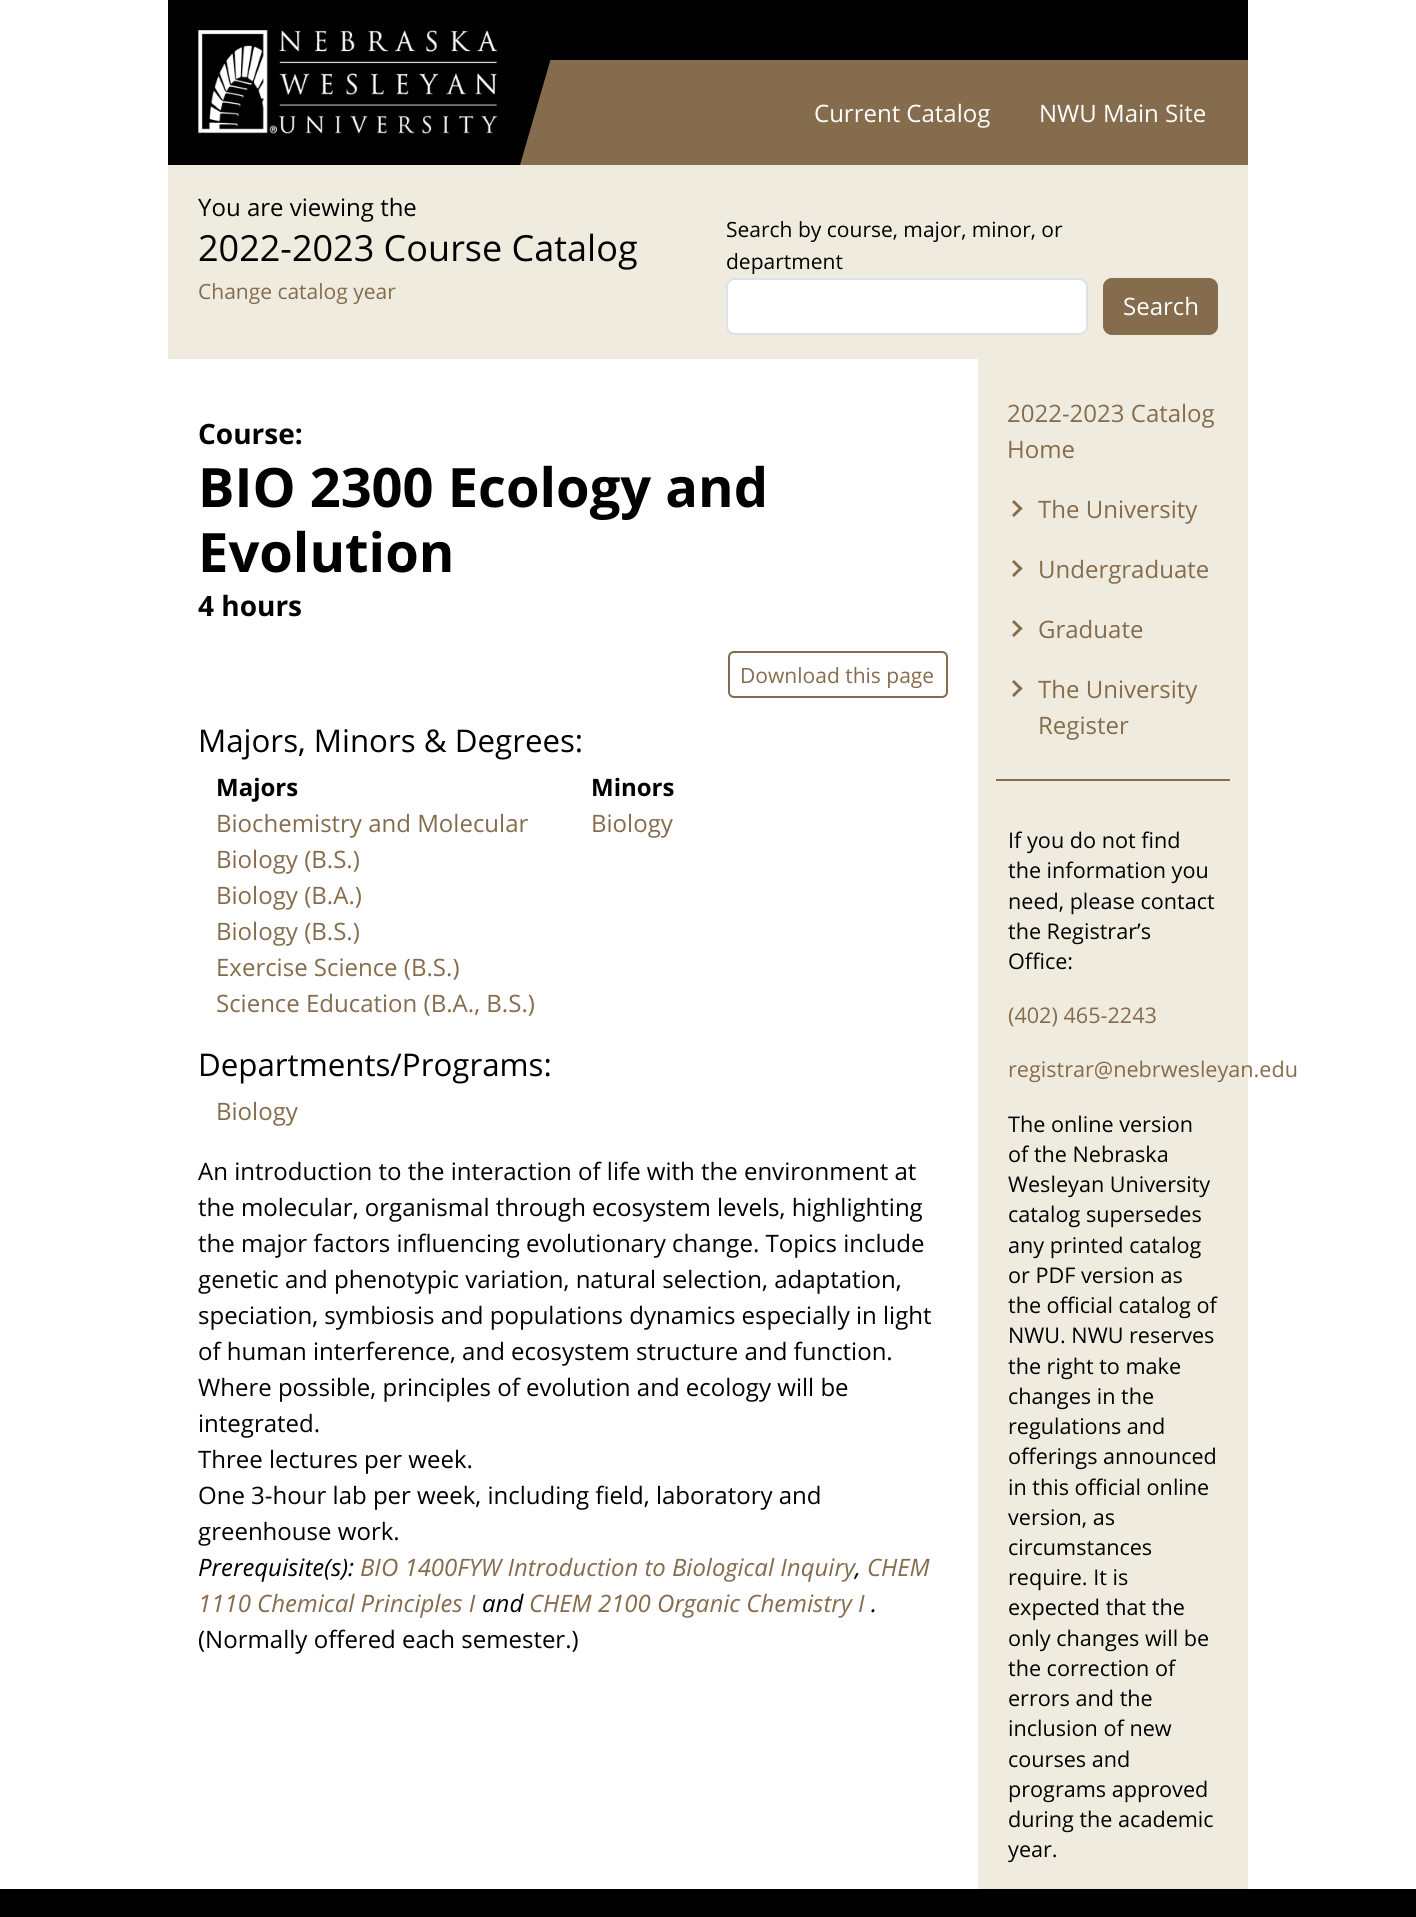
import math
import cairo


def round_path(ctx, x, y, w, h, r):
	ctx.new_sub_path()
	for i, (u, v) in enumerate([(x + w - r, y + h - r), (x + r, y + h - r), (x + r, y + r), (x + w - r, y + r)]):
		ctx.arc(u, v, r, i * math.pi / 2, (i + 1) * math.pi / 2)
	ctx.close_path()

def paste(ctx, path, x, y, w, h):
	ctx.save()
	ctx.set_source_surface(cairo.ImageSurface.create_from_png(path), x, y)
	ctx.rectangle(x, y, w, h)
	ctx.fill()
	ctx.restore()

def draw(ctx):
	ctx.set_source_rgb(1, 1, 1)
	ctx.paint()
	ctx.set_source_rgb(0, 0, 0)
	ctx.rectangle(168, 0, 1080, 60)
	ctx.fill()
	ctx.set_source_rgb(0.518, 0.424, 0.302)
	ctx.rectangle(520, 60, 728, 105)
	ctx.fill()
	ctx.set_source_rgb(0, 0, 0)
	ctx.rectangle(168, 60, 30, 105)
	ctx.fill()
	ctx.new_path()
	ctx.move_to(198, 58)
	ctx.line_to(551, 58)
	ctx.line_to(520, 165)
	ctx.line_to(168, 165)
	ctx.close_path()
	ctx.fill()
	paste(ctx, 'media/1.png', 198, 30, 300, 104)
	ctx.select_font_face('Open Sans')
	ctx.set_font_size(24)
	ctx.set_source_rgb(1, 1, 1)
	ctx.move_to(814, 122)
	ctx.show_text('Current Catalog')
	ctx.move_to(1039, 122)
	ctx.show_text('NWU Main Site')
	ctx.set_source_rgb(0.937, 0.925, 0.875)
	ctx.rectangle(168, 165, 1080, 194)
	ctx.fill()
	ctx.set_source_rgb(0, 0, 0)
	ctx.move_to(198, 216)
	ctx.show_text('You are viewing the')
	ctx.set_font_size(36)
	ctx.move_to(198, 261)
	ctx.show_text('2022-2023 Course Catalog')
	ctx.set_font_size(21)
	ctx.set_source_rgb(0.518, 0.424, 0.302)
	ctx.move_to(198, 299)
	ctx.show_text('Change catalog year')
	ctx.set_source_rgb(0, 0, 0)
	ctx.move_to(726, 237)
	ctx.show_text('Search by course, major, minor, or')
	ctx.move_to(726, 269)
	ctx.show_text('department')
	ctx.set_source_rgb(1, 1, 1)
	round_path(ctx, 727, 279, 360, 55, 8)
	ctx.fill_preserve()
	ctx.set_source_rgb(0.871, 0.886, 0.902)
	ctx.stroke()
	ctx.set_source_rgb(0.518, 0.424, 0.302)
	round_path(ctx, 1104, 279, 113, 55, 8)
	ctx.fill_preserve()
	ctx.stroke()
	ctx.set_font_size(24)
	ctx.set_source_rgb(1, 1, 1)
	ctx.move_to(1123, 315)
	ctx.show_text('Search')
	ctx.select_font_face('Open Sans', cairo.FONT_SLANT_NORMAL, cairo.FONT_WEIGHT_BOLD)
	ctx.set_font_size(28)
	ctx.set_source_rgb(0, 0, 0)
	ctx.move_to(198, 444)
	ctx.show_text('Course:')
	ctx.set_font_size(54.25)
	ctx.move_to(198, 507)
	ctx.show_text('BIO 2300 Ecology and')
	ctx.move_to(198, 572)
	ctx.show_text('Evolution')
	ctx.set_font_size(28)
	ctx.move_to(198, 616)
	ctx.show_text('4 hours')
	round_path(ctx, 729, 652, 218, 45, 5)
	ctx.set_source_rgb(0.518, 0.424, 0.302)
	ctx.stroke()
	ctx.select_font_face('Open Sans')
	ctx.set_font_size(21)
	ctx.move_to(740, 683)
	ctx.show_text('Download this page')
	ctx.set_font_size(31.25)
	ctx.set_source_rgb(0, 0, 0)
	ctx.move_to(198, 752)
	ctx.show_text('Majors, Minors & Degrees:')
	ctx.select_font_face('Open Sans', cairo.FONT_SLANT_NORMAL, cairo.FONT_WEIGHT_BOLD)
	ctx.set_font_size(24)
	ctx.move_to(216, 796)
	ctx.show_text('Majors')
	ctx.select_font_face('Open Sans')
	ctx.set_source_rgb(0.518, 0.424, 0.302)
	for x, y, s in [
		(216, 832, 'Biochemistry and Molecular'),
		(216, 868, 'Biology (B.S.)'),
		(216, 904, 'Biology (B.A.)'),
		(216, 940, 'Biology (B.S.)'),
		(216, 976, 'Exercise Science (B.S.)'),
		(216, 1012, 'Science Education (B.A., B.S.)'),
	]:
		ctx.move_to(x, y)
		ctx.show_text(s)
	ctx.select_font_face('Open Sans', cairo.FONT_SLANT_NORMAL, cairo.FONT_WEIGHT_BOLD)
	ctx.set_source_rgb(0, 0, 0)
	ctx.move_to(591, 796)
	ctx.show_text('Minors')
	ctx.select_font_face('Open Sans')
	ctx.set_source_rgb(0.518, 0.424, 0.302)
	ctx.move_to(591, 832)
	ctx.show_text('Biology')
	ctx.set_font_size(31.25)
	ctx.set_source_rgb(0, 0, 0)
	ctx.move_to(198, 1076)
	ctx.show_text('Departments/Programs:')
	ctx.set_font_size(24)
	ctx.set_source_rgb(0.518, 0.424, 0.302)
	ctx.move_to(216, 1120)
	ctx.show_text('Biology')
	ctx.set_source_rgb(0, 0, 0)
	for x, y, s in [
		(198, 1180, 'An introduction to the interaction of life with the environment at'),
		(198, 1216, 'the molecular, organismal through ecosystem levels, highlighting'),
		(198, 1252, 'the major factors influencing evolutionary change. Topics include'),
		(198, 1288, 'genetic and phenotypic variation, natural selection, adaptation,'),
		(198, 1324, 'speciation, symbiosis and populations dynamics especially in light'),
		(198, 1360, 'of human interference, and ecosystem structure and function.'),
		(198, 1396, 'Where possible, principles of evolution and ecology will be'),
		(198, 1432, 'integrated.'),
		(198, 1468, 'Three lectures per week.'),
		(198, 1504, 'One 3-hour lab per week, including field, laboratory and'),
		(198, 1540, 'greenhouse work.'),
	]:
		ctx.move_to(x, y)
		ctx.show_text(s)
	ctx.select_font_face('Open Sans', cairo.FONT_SLANT_ITALIC)
	ctx.move_to(198, 1576)
	ctx.show_text('Prerequisite(s):')
	ctx.set_source_rgb(0.518, 0.424, 0.302)
	ctx.move_to(360, 1576)
	ctx.show_text('BIO 1400FYW Introduction to Biological Inquiry')
	ctx.move_to(867, 1576)
	ctx.show_text('CHEM')
	ctx.set_source_rgb(0, 0, 0)
	ctx.move_to(855, 1576)
	ctx.show_text(',')
	ctx.set_source_rgb(0.518, 0.424, 0.302)
	ctx.move_to(198, 1612)
	ctx.show_text('1110 Chemical Principles I')
	ctx.set_source_rgb(0, 0, 0)
	ctx.move_to(482, 1612)
	ctx.show_text('and')
	ctx.set_source_rgb(0.518, 0.424, 0.302)
	ctx.move_to(529, 1612)
	ctx.show_text('CHEM 2100 Organic Chemistry I')
	ctx.set_source_rgb(0, 0, 0)
	ctx.move_to(871, 1612)
	ctx.show_text('.')
	ctx.select_font_face('Open Sans')
	ctx.move_to(198, 1648)
	ctx.show_text('(Normally offered each semester.)')
	ctx.set_source_rgb(0.937, 0.925, 0.875)
	ctx.rectangle(978, 359, 270, 1530)
	ctx.fill()
	ctx.set_source_rgb(0.518, 0.424, 0.302)
	ctx.rectangle(996, 779, 234, 2)
	ctx.fill()
	ctx.move_to(1007, 422)
	ctx.show_text('2022-2023 Catalog')
	ctx.move_to(1007, 458)
	ctx.show_text('Home')
	ctx.new_path()
	ctx.move_to(1012, 502)
	ctx.line_to(1014, 500)
	ctx.line_to(1022.5, 508.5)
	ctx.line_to(1020.5, 510.5)
	ctx.close_path()
	ctx.fill()
	ctx.new_path()
	ctx.move_to(1012, 515)
	ctx.line_to(1020.5, 506.5)
	ctx.line_to(1022.5, 508.5)
	ctx.line_to(1014, 517)
	ctx.close_path()
	ctx.fill()
	ctx.move_to(1038, 518)
	ctx.show_text('The University')
	ctx.new_path()
	ctx.move_to(1012, 562)
	ctx.line_to(1014, 560)
	ctx.line_to(1022.5, 568.5)
	ctx.line_to(1020.5, 570.5)
	ctx.close_path()
	ctx.fill()
	ctx.new_path()
	ctx.move_to(1012, 575)
	ctx.line_to(1020.5, 566.5)
	ctx.line_to(1022.5, 568.5)
	ctx.line_to(1014, 577)
	ctx.close_path()
	ctx.fill()
	ctx.move_to(1038, 578)
	ctx.show_text('Undergraduate')
	ctx.new_path()
	ctx.move_to(1012, 622)
	ctx.line_to(1014, 620)
	ctx.line_to(1022.5, 628.5)
	ctx.line_to(1020.5, 630.5)
	ctx.close_path()
	ctx.fill()
	ctx.new_path()
	ctx.move_to(1012, 635)
	ctx.line_to(1020.5, 626.5)
	ctx.line_to(1022.5, 628.5)
	ctx.line_to(1014, 637)
	ctx.close_path()
	ctx.fill()
	ctx.move_to(1038, 638)
	ctx.show_text('Graduate')
	ctx.new_path()
	ctx.move_to(1012, 682)
	ctx.line_to(1014, 680)
	ctx.line_to(1022.5, 688.5)
	ctx.line_to(1020.5, 690.5)
	ctx.close_path()
	ctx.fill()
	ctx.new_path()
	ctx.move_to(1012, 695)
	ctx.line_to(1020.5, 686.5)
	ctx.line_to(1022.5, 688.5)
	ctx.line_to(1014, 697)
	ctx.close_path()
	ctx.fill()
	ctx.move_to(1038, 698)
	ctx.show_text('The University')
	ctx.move_to(1038, 734)
	ctx.show_text('Register')
	ctx.set_font_size(21.6)
	ctx.set_source_rgb(0, 0, 0)
	for x, y, s in [
		(1008, 848, 'If you do not find'),
		(1008, 878, 'the information you'),
		(1008, 909, 'need, please contact'),
		(1008, 939, 'the Registrar’s'),
		(1008, 969, 'Office:'),
	]:
		ctx.move_to(x, y)
		ctx.show_text(s)
	ctx.set_source_rgb(0.518, 0.424, 0.302)
	ctx.move_to(1008, 1023)
	ctx.show_text('(402) 465-2243')
	ctx.move_to(1008, 1077)
	ctx.show_text('registrar@nebrwesleyan.edu')
	ctx.set_source_rgb(0, 0, 0)
	for x, y, s in [
		(1008, 1132, 'The online version'),
		(1008, 1162, 'of the Nebraska'),
		(1008, 1192, 'Wesleyan University'),
		(1008, 1222, 'catalog supersedes'),
		(1008, 1253, 'any printed catalog'),
		(1008, 1283, 'or PDF version as'),
		(1008, 1313, 'the official catalog of'),
		(1008, 1343, 'NWU. NWU reserves'),
		(1008, 1374, 'the right to make'),
		(1008, 1404, 'changes in the'),
		(1008, 1434, 'regulations and'),
		(1008, 1464, 'offerings announced'),
		(1008, 1495, 'in this official online'),
		(1008, 1525, 'version, as'),
		(1008, 1555, 'circumstances'),
		(1008, 1585, 'require. It is'),
		(1008, 1615, 'expected that the'),
		(1008, 1646, 'only changes will be'),
		(1008, 1676, 'the correction of'),
		(1008, 1706, 'errors and the'),
		(1008, 1736, 'inclusion of new'),
		(1008, 1767, 'courses and'),
		(1008, 1797, 'programs approved'),
		(1008, 1827, 'during the academic'),
		(1008, 1857, 'year.'),
	]:
		ctx.move_to(x, y)
		ctx.show_text(s)
	ctx.rectangle(0, 1889, 1416, 28)
	ctx.fill()


surface = cairo.ImageSurface(cairo.FORMAT_RGB24, 1416, 1917)
ctx = cairo.Context(surface)
options = cairo.FontOptions()
options.set_hint_metrics(cairo.HINT_METRICS_OFF)
options.set_hint_style(cairo.HINT_STYLE_NONE)
ctx.set_font_options(options)
ctx.set_miter_limit(4)
draw(ctx)
surface.write_to_png('image.png')
